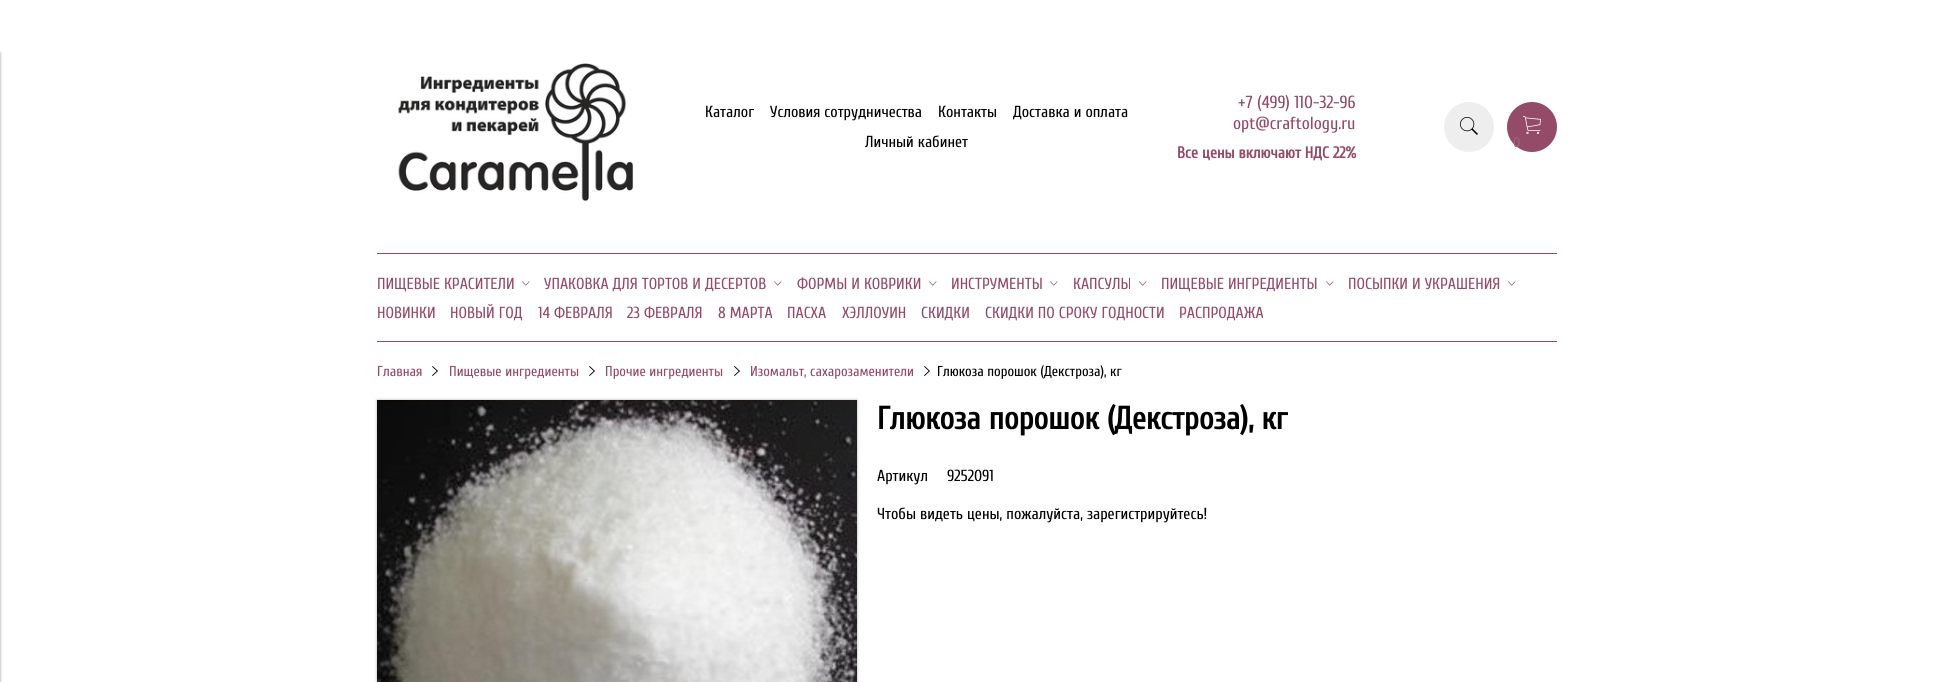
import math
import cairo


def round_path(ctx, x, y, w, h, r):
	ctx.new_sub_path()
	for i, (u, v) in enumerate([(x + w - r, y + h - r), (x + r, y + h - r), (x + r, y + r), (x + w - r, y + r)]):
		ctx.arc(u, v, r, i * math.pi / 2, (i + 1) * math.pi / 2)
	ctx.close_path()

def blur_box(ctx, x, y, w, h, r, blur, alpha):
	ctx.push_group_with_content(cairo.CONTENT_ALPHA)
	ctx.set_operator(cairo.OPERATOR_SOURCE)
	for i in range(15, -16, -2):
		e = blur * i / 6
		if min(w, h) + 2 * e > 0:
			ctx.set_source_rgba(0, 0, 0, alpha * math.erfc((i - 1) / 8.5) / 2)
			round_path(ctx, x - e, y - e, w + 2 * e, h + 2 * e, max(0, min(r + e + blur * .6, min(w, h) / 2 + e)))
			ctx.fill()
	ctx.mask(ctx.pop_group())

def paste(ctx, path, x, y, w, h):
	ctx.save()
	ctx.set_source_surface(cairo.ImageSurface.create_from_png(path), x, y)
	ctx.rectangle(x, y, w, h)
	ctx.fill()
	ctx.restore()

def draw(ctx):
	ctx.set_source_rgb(1, 1, 1)
	ctx.paint()
	ctx.set_source_rgb(0, 0, 0)
	blur_box(ctx, -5, 53, 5, 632, 0, 1.5, 0.4)
	paste(ctx, 'media/1.png', 398, 63, 236, 139)
	ctx.select_font_face('Cuprum')
	ctx.set_font_size(16)
	ctx.set_source_rgb(0, 0, 0)
	for x, y, s in [
		(705, 117, 'Каталог'),
		(770, 117, 'Условия сотрудничества'),
		(938, 117, 'Контакты'),
		(1013, 117, 'Доставка и оплата'),
		(865, 147, 'Личный кабинет'),
	]:
		ctx.move_to(x, y)
		ctx.show_text(s)
	ctx.set_font_size(17.5)
	ctx.set_source_rgb(0.58, 0.294, 0.408)
	ctx.move_to(1238, 108)
	ctx.show_text('+7 (499) 110-32-96')
	ctx.move_to(1233, 129)
	ctx.show_text('opt@craftology.ru')
	ctx.select_font_face('Cuprum', cairo.FONT_SLANT_NORMAL, cairo.FONT_WEIGHT_BOLD)
	ctx.set_font_size(16)
	ctx.move_to(1177, 158)
	ctx.show_text('Все цены включают НДС 22%')
	ctx.set_source_rgb(0.933, 0.933, 0.933)
	ctx.new_path()
	ctx.arc(1469, 127, 25, 0, 2 * math.pi)
	ctx.fill()
	paste(ctx, 'media/2.png', 1460, 117, 18, 18)
	ctx.set_source_rgb(0.58, 0.294, 0.408)
	ctx.arc(1532, 127, 25, 0, 2 * math.pi)
	ctx.fill()
	paste(ctx, 'media/3.png', 1523, 116, 18, 18)
	ctx.select_font_face('Cuprum')
	ctx.set_font_size(14)
	ctx.set_source_rgb(0.635, 0.384, 0.486)
	ctx.move_to(1513, 147)
	ctx.show_text('0')
	ctx.set_source_rgb(0.58, 0.294, 0.408)
	ctx.rectangle(377, 253, 1180, 1)
	ctx.fill()
	ctx.set_font_size(16)
	ctx.move_to(377, 289)
	ctx.show_text('ПИЩЕВЫЕ КРАСИТЕЛИ')
	paste(ctx, 'media/4.png', 522, 281, 8, 5)
	ctx.move_to(544, 289)
	ctx.show_text('УПАКОВКА ДЛЯ ТОРТОВ И ДЕСЕРТОВ')
	paste(ctx, 'media/4.png', 774, 281, 8, 5)
	ctx.move_to(797, 289)
	ctx.show_text('ФОРМЫ И КОВРИКИ')
	paste(ctx, 'media/4.png', 929, 281, 8, 5)
	ctx.move_to(951, 289)
	ctx.show_text('ИНСТРУМЕНТЫ')
	paste(ctx, 'media/4.png', 1050, 281, 8, 5)
	ctx.move_to(1073, 289)
	ctx.show_text('КАПСУЛЫ')
	paste(ctx, 'media/4.png', 1139, 281, 8, 5)
	ctx.move_to(1161, 289)
	ctx.show_text('ПИЩЕВЫЕ ИНГРЕДИЕНТЫ')
	paste(ctx, 'media/4.png', 1326, 281, 8, 5)
	ctx.move_to(1348, 289)
	ctx.show_text('ПОСЫПКИ И УКРАШЕНИЯ')
	paste(ctx, 'media/4.png', 1508, 281, 8, 5)
	for x, y, s in [
		(377, 318, 'НОВИНКИ'),
		(450, 318, 'НОВЫЙ ГОД'),
		(538, 318, '14 ФЕВРАЛЯ'),
		(627, 318, '23 ФЕВРАЛЯ'),
		(718, 318, '8 МАРТА'),
		(787, 318, 'ПАСХА'),
		(842, 318, 'ХЭЛЛОУИН'),
		(921, 318, 'СКИДКИ'),
		(985, 318, 'СКИДКИ ПО СРОКУ ГОДНОСТИ'),
		(1179, 318, 'РАСПРОДАЖА'),
	]:
		ctx.move_to(x, y)
		ctx.show_text(s)
	ctx.rectangle(377, 341, 1180, 1)
	ctx.fill()
	ctx.set_font_size(14.4)
	ctx.move_to(377, 376)
	ctx.show_text('Главная')
	paste(ctx, 'media/5.png', 432, 366, 6, 10)
	ctx.move_to(449, 376)
	ctx.show_text('Пищевые ингредиенты')
	paste(ctx, 'media/5.png', 589, 366, 6, 10)
	ctx.move_to(605, 376)
	ctx.show_text('Прочие ингредиенты')
	paste(ctx, 'media/5.png', 734, 366, 6, 10)
	ctx.move_to(750, 376)
	ctx.show_text('Изомальт, сахарозаменители')
	paste(ctx, 'media/5.png', 924, 366, 6, 10)
	ctx.set_source_rgb(0, 0, 0)
	ctx.move_to(937, 376)
	ctx.show_text('Глюкоза порошок (Декстроза), кг')
	ctx.set_source_rgb(0, 0, 0)
	blur_box(ctx, 377, 400, 480, 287, 0, 1.5, 0.3)
	paste(ctx, 'media/6.png', 377, 400, 480, 282)
	ctx.select_font_face('Cuprum', cairo.FONT_SLANT_NORMAL, cairo.FONT_WEIGHT_BOLD)
	ctx.set_font_size(32)
	ctx.set_source_rgb(0, 0, 0)
	ctx.move_to(877, 429)
	ctx.show_text('Глюкоза порошок (Декстроза), кг')
	ctx.select_font_face('Cuprum')
	ctx.set_font_size(16)
	for x, y, s in [
		(877, 481, 'Артикул'),
		(947, 481, '9252091'),
		(877, 519, 'Чтобы видеть цены, пожалуйста, зарегистрируйтесь!'),
	]:
		ctx.move_to(x, y)
		ctx.show_text(s)


surface = cairo.ImageSurface(cairo.FORMAT_RGB24, 1933, 682)
ctx = cairo.Context(surface)
options = cairo.FontOptions()
options.set_hint_metrics(cairo.HINT_METRICS_OFF)
options.set_hint_style(cairo.HINT_STYLE_NONE)
ctx.set_font_options(options)
ctx.set_miter_limit(4)
draw(ctx)
surface.write_to_png('image.png')
